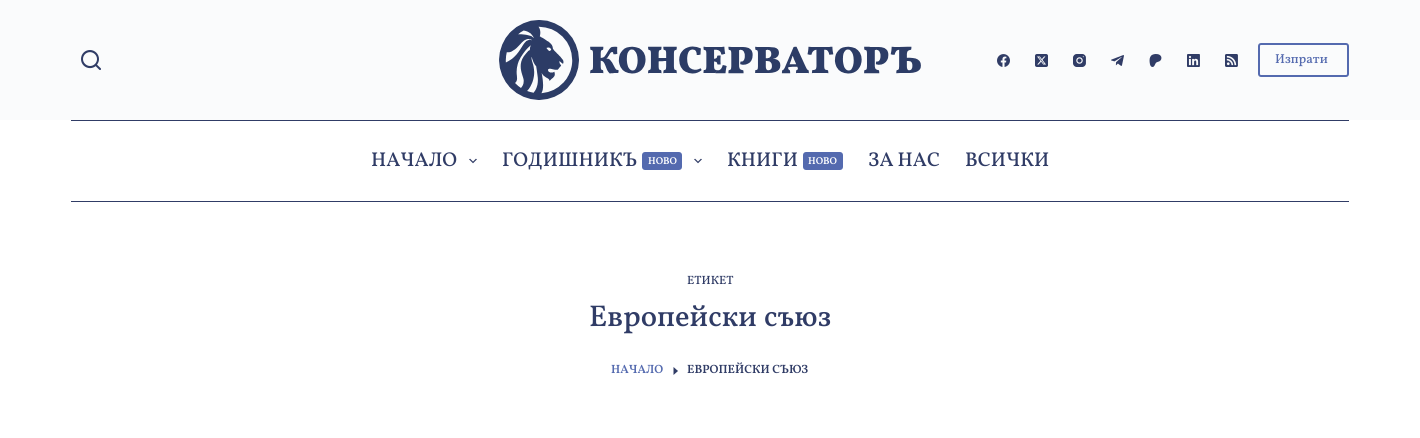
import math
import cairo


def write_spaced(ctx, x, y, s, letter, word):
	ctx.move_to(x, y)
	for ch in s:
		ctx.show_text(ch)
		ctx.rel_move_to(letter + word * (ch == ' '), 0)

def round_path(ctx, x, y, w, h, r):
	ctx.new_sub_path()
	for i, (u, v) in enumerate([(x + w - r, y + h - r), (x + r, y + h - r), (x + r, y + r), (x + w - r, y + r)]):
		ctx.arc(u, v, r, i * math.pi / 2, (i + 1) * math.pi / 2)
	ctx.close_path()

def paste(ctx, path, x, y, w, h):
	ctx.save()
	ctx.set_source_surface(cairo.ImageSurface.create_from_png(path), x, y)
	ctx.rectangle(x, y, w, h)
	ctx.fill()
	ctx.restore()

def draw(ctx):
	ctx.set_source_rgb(0.98, 0.984, 0.988)
	ctx.paint()
	paste(ctx, 'media/1.png', 81, 50, 20, 20)
	paste(ctx, 'media/2.png', 499, 20, 422, 80)
	paste(ctx, 'media/3.png', 997, 54, 13, 13)
	paste(ctx, 'media/4.png', 1035, 54, 13, 13)
	paste(ctx, 'media/5.png', 1073, 54, 13, 13)
	paste(ctx, 'media/6.png', 1111, 55, 13, 11)
	paste(ctx, 'media/7.png', 1149, 54, 13, 13)
	paste(ctx, 'media/8.png', 1187, 54, 13, 13)
	paste(ctx, 'media/9.png', 1225, 54, 13, 13)
	round_path(ctx, 1259, 44, 89, 32, 2)
	ctx.set_source_rgb(0.329, 0.416, 0.686)
	ctx.stroke()
	ctx.select_font_face('Vollkorn Medium')
	ctx.set_font_size(13)
	ctx.move_to(1275, 63)
	ctx.show_text('Изпрати')
	ctx.set_source_rgb(1, 1, 1)
	ctx.rectangle(0, 120, 1420, 318)
	ctx.fill()
	ctx.set_source_rgb(0.188, 0.235, 0.4)
	ctx.rectangle(71, 120, 1278, 1)
	ctx.rectangle(71, 201, 1278, 1)
	ctx.fill()
	ctx.set_font_size(20)
	ctx.move_to(371, 166)
	ctx.show_text('НАЧАЛО')
	paste(ctx, 'media/10.png', 469, 158, 8, 6)
	ctx.move_to(502, 166)
	ctx.show_text('ГОДИШНИКЪ')
	ctx.set_source_rgb(0.329, 0.416, 0.686)
	round_path(ctx, 642, 152, 40, 18, 3)
	ctx.fill()
	ctx.select_font_face('Vollkorn SemiBold')
	ctx.set_font_size(10)
	ctx.set_source_rgb(1, 1, 1)
	ctx.move_to(648, 164)
	ctx.show_text('НОВО')
	paste(ctx, 'media/10.png', 694, 158, 8, 6)
	ctx.select_font_face('Vollkorn Medium')
	ctx.set_font_size(20)
	ctx.set_source_rgb(0.188, 0.235, 0.4)
	ctx.move_to(727, 166)
	ctx.show_text('КНИГИ')
	ctx.set_source_rgb(0.329, 0.416, 0.686)
	round_path(ctx, 803, 152, 40, 18, 3)
	ctx.fill()
	ctx.select_font_face('Vollkorn SemiBold')
	ctx.set_font_size(10)
	ctx.set_source_rgb(1, 1, 1)
	ctx.move_to(808, 164)
	ctx.show_text('НОВО')
	ctx.select_font_face('Vollkorn Medium')
	ctx.set_font_size(20)
	ctx.set_source_rgb(0.188, 0.235, 0.4)
	ctx.move_to(868, 166)
	ctx.show_text('ЗА НАС')
	ctx.move_to(965, 166)
	ctx.show_text('ВСИЧКИ')
	ctx.set_font_size(12)
	ctx.move_to(687, 284)
	ctx.show_text('ЕТИКЕТ')
	ctx.set_font_size(30)
	write_spaced(ctx, 589, 326, 'Европейски съюз', 0, 1)
	ctx.select_font_face('Vollkorn SemiBold')
	ctx.set_font_size(12)
	ctx.set_source_rgb(0.329, 0.416, 0.686)
	ctx.move_to(611, 373)
	ctx.show_text('НАЧАЛО')
	ctx.set_source_rgb(0.188, 0.235, 0.4)
	ctx.new_path()
	ctx.move_to(673.5, 367)
	ctx.line_to(678, 371)
	ctx.line_to(673.5, 375)
	ctx.close_path()
	ctx.fill()
	ctx.move_to(687, 373)
	ctx.show_text('ЕВРОПЕЙСКИ СЪЮЗ')


surface = cairo.ImageSurface(cairo.FORMAT_RGB24, 1420, 438)
ctx = cairo.Context(surface)
options = cairo.FontOptions()
options.set_hint_metrics(cairo.HINT_METRICS_OFF)
options.set_hint_style(cairo.HINT_STYLE_NONE)
ctx.set_font_options(options)
ctx.set_miter_limit(4)
draw(ctx)
surface.write_to_png('image.png')
